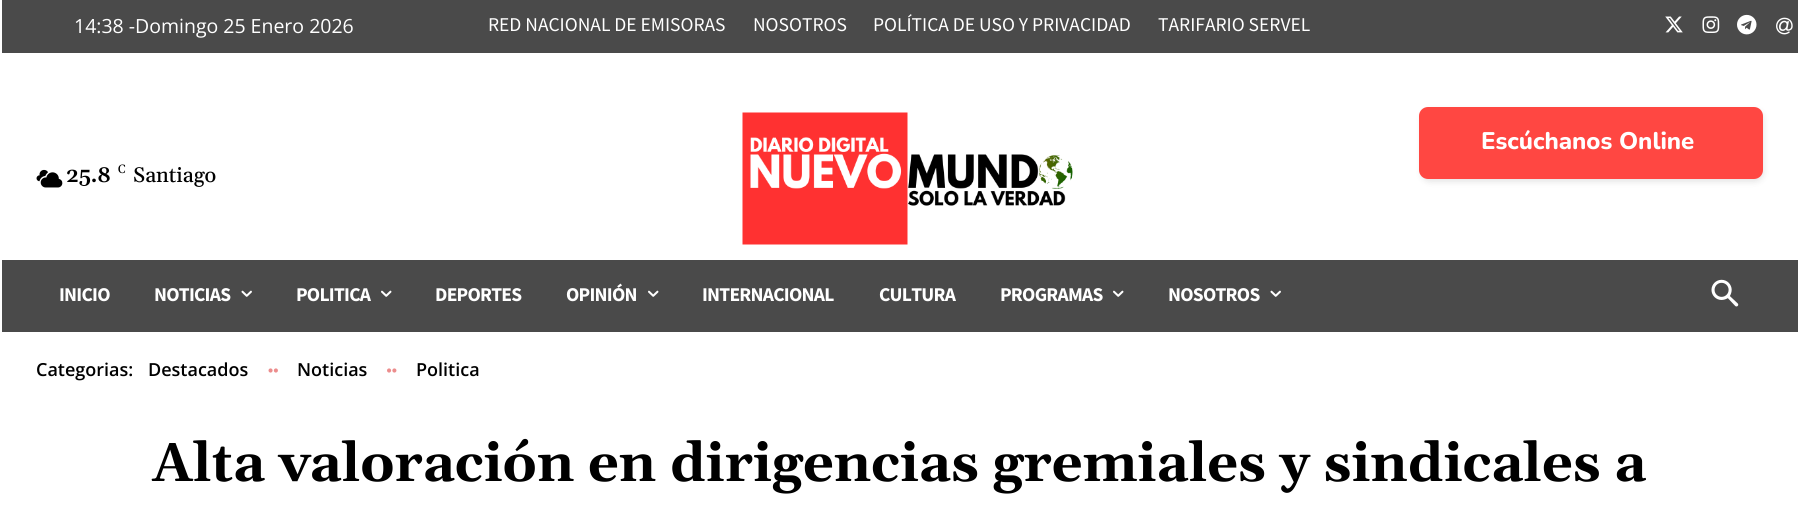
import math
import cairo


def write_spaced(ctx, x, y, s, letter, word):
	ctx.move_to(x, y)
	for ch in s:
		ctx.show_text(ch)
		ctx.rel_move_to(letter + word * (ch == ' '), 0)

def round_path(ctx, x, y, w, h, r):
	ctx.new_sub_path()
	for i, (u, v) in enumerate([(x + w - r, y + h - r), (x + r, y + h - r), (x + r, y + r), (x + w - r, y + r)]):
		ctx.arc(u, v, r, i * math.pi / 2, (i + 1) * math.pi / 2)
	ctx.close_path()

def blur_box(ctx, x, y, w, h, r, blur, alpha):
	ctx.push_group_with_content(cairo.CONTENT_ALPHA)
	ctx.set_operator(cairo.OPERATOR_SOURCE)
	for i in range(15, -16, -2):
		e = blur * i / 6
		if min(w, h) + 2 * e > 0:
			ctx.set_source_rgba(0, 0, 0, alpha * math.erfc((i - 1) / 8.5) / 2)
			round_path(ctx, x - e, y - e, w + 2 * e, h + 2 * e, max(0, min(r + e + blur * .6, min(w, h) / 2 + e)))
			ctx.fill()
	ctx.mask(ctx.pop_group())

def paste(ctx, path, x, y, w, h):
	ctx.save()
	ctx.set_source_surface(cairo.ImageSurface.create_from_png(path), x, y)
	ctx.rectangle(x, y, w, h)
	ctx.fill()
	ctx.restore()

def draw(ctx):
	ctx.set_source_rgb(1, 1, 1)
	ctx.paint()
	ctx.set_source_rgb(0.29, 0.29, 0.29)
	ctx.rectangle(2, 0, 1796, 53)
	ctx.fill()
	ctx.select_font_face('Open Sans')
	ctx.set_font_size(19.5)
	ctx.set_source_rgb(1, 1, 1)
	ctx.move_to(74, 33)
	ctx.show_text('14:38 -Domingo 25 Enero 2026')
	ctx.select_font_face('Source Sans Pro')
	for x, y, s in [
		(488, 31, 'RED NACIONAL DE EMISORAS'),
		(753, 31, 'NOSOTROS'),
		(873, 31, 'POLÍTICA DE USO Y PRIVACIDAD'),
		(1158, 31, 'TARIFARIO SERVEL'),
	]:
		ctx.move_to(x, y)
		ctx.show_text(s)
	paste(ctx, 'media/1.png', 1665, 16, 18, 17)
	paste(ctx, 'media/2.png', 1702, 16, 18, 17)
	paste(ctx, 'media/3.png', 1737, 14, 20, 21)
	paste(ctx, 'media/4.png', 1776, 17, 17, 18)
	paste(ctx, 'media/5.png', 742, 112, 331, 133)
	ctx.set_source_rgb(0, 0, 0)
	blur_box(ctx, 1421, 110, 343, 72, 9, 3, 0.1)
	ctx.set_source_rgb(1, 0.278, 0.259)
	round_path(ctx, 1420, 108, 342, 70, 8)
	ctx.fill_preserve()
	ctx.stroke()
	ctx.select_font_face('Nunito ExtraBold')
	ctx.set_font_size(24)
	ctx.set_source_rgb(1, 1, 1)
	ctx.move_to(1481, 149)
	ctx.show_text('Escúchanos Online')
	paste(ctx, 'media/6.png', 36, 169, 27, 19)
	ctx.select_font_face('Gelasio SemiBold')
	ctx.set_font_size(21)
	ctx.set_source_rgb(0, 0, 0)
	ctx.move_to(66, 182)
	ctx.show_text('25.8')
	ctx.select_font_face('Gelasio')
	ctx.set_font_size(12)
	ctx.move_to(118, 173)
	ctx.show_text('C')
	ctx.select_font_face('Gelasio Medium')
	ctx.set_font_size(21)
	ctx.move_to(133, 182)
	ctx.show_text('Santiago')
	ctx.set_source_rgb(0.29, 0.29, 0.29)
	ctx.rectangle(2, 260, 1796, 72)
	ctx.fill()
	ctx.select_font_face('Source Sans Pro', cairo.FONT_SLANT_NORMAL, cairo.FONT_WEIGHT_BOLD)
	ctx.set_font_size(19.5)
	ctx.set_source_rgb(1, 1, 1)
	write_spaced(ctx, 59, 301, 'INICIO', -0.75, 0)
	write_spaced(ctx, 154, 301, 'NOTICIAS', -0.75, 0)
	paste(ctx, 'media/7.png', 241, 290, 11, 7)
	write_spaced(ctx, 296, 301, 'POLITICA', -0.75, 0)
	paste(ctx, 'media/8.png', 381, 290, 11, 7)
	write_spaced(ctx, 435, 301, 'DEPORTES', -0.75, 0)
	write_spaced(ctx, 566, 301, 'OPINIÓN', -0.75, 0)
	paste(ctx, 'media/8.png', 648, 290, 11, 7)
	for x, y, s in [
		(702, 301, 'INTERNACIONAL'),
		(879, 301, 'CULTURA'),
		(1000, 301, 'PROGRAMAS'),
	]:
		write_spaced(ctx, x, y, s, -0.75, 0)
	paste(ctx, 'media/8.png', 1113, 290, 11, 7)
	write_spaced(ctx, 1168, 301, 'NOSOTROS', -0.75, 0)
	paste(ctx, 'media/7.png', 1270, 290, 11, 7)
	paste(ctx, 'media/9.png', 1711, 279, 28, 28)
	ctx.select_font_face('Open Sans SemiBold')
	ctx.set_font_size(18)
	ctx.set_source_rgb(0, 0, 0)
	ctx.move_to(36, 376)
	ctx.show_text('Categorias:')
	ctx.move_to(148, 376)
	ctx.show_text('Destacados')
	paste(ctx, 'media/10.png', 268, 368, 10, 5)
	ctx.move_to(297, 376)
	ctx.show_text('Noticias')
	paste(ctx, 'media/11.png', 387, 368, 10, 5)
	ctx.move_to(416, 376)
	ctx.show_text('Politica')
	ctx.select_font_face('Gelasio', cairo.FONT_SLANT_NORMAL, cairo.FONT_WEIGHT_BOLD)
	ctx.set_font_size(54)
	ctx.move_to(152, 481)
	ctx.show_text('Alta valoración en dirigencias gremiales y sindicales a')


surface = cairo.ImageSurface(cairo.FORMAT_RGB24, 1798, 514)
ctx = cairo.Context(surface)
options = cairo.FontOptions()
options.set_hint_metrics(cairo.HINT_METRICS_OFF)
options.set_hint_style(cairo.HINT_STYLE_NONE)
ctx.set_font_options(options)
ctx.set_miter_limit(4)
draw(ctx)
surface.write_to_png('image.png')
